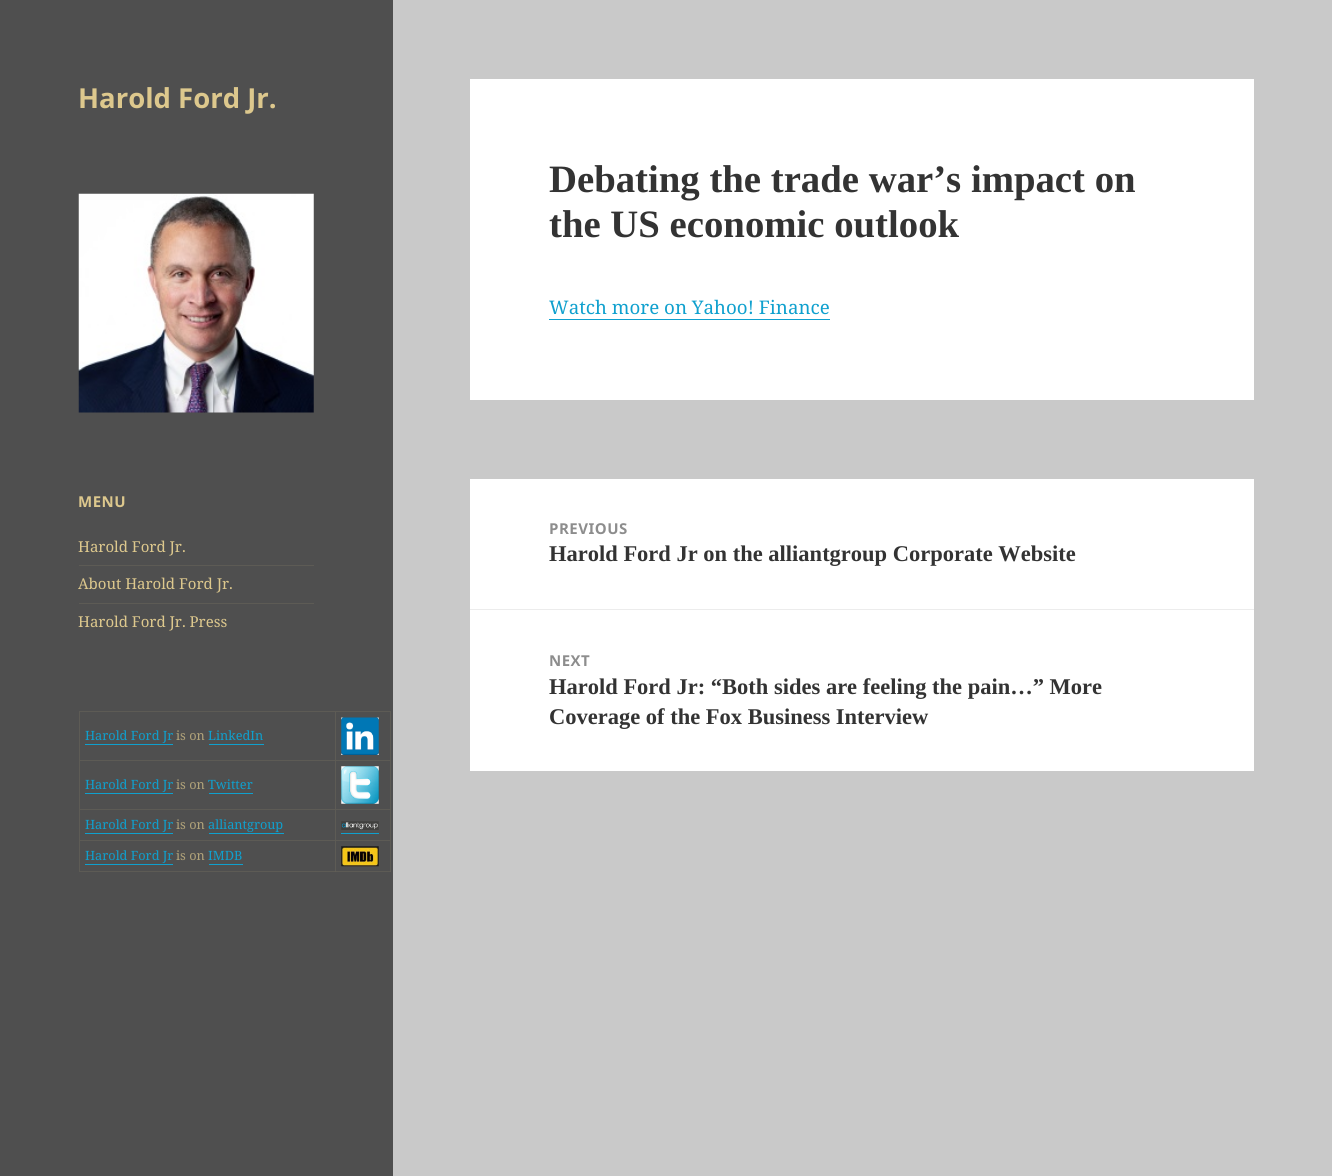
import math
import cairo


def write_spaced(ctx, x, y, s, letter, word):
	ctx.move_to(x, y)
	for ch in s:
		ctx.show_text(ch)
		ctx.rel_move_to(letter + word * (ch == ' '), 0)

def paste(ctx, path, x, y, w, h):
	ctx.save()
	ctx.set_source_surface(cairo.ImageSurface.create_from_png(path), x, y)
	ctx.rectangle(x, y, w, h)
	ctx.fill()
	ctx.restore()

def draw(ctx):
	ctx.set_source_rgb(0.788, 0.788, 0.788)
	ctx.paint()
	ctx.set_source_rgb(0.31, 0.31, 0.31)
	ctx.rectangle(0, 0, 393, 1176)
	ctx.fill()
	ctx.select_font_face('Noto Sans', cairo.FONT_SLANT_NORMAL, cairo.FONT_WEIGHT_BOLD)
	ctx.set_font_size(27.5)
	ctx.set_source_rgb(0.867, 0.784, 0.553)
	ctx.move_to(78, 108)
	ctx.show_text('Harold Ford Jr.')
	paste(ctx, 'media/1.png', 78, 193, 236, 220)
	ctx.set_font_size(15)
	write_spaced(ctx, 78, 507, 'MENU', 0.5, 0)
	ctx.select_font_face('Noto Serif')
	ctx.move_to(78, 552)
	ctx.show_text('Harold Ford Jr.')
	ctx.set_source_rgb(0.365, 0.357, 0.333)
	ctx.rectangle(79, 565, 235, 1)
	ctx.fill()
	ctx.set_source_rgb(0.867, 0.784, 0.553)
	ctx.move_to(78, 589)
	ctx.show_text('About Harold Ford Jr.')
	ctx.set_source_rgb(0.365, 0.357, 0.333)
	ctx.rectangle(79, 603, 235, 1)
	ctx.fill()
	ctx.set_source_rgb(0.867, 0.784, 0.553)
	ctx.move_to(78, 627)
	ctx.show_text('Harold Ford Jr. Press')
	ctx.set_source_rgb(0.365, 0.357, 0.333)
	ctx.new_path()
	ctx.move_to(79, 711)
	ctx.line_to(391, 711)
	ctx.line_to(391, 712)
	ctx.line_to(80, 712)
	ctx.close_path()
	ctx.fill()
	ctx.set_source_rgba(0.867, 0.784, 0.553, 0.1)
	ctx.new_path()
	ctx.move_to(79, 872)
	ctx.line_to(79, 711)
	ctx.line_to(80, 712)
	ctx.line_to(80, 872)
	ctx.close_path()
	ctx.fill()
	ctx.set_source_rgb(0.365, 0.357, 0.333)
	ctx.new_path()
	ctx.move_to(336, 712)
	ctx.line_to(336, 761)
	ctx.line_to(335, 760)
	ctx.line_to(335, 712)
	ctx.close_path()
	ctx.fill()
	ctx.set_source_rgba(0.867, 0.784, 0.553, 0.1)
	ctx.new_path()
	ctx.move_to(336, 761)
	ctx.line_to(80, 761)
	ctx.line_to(80, 760)
	ctx.line_to(335, 760)
	ctx.close_path()
	ctx.fill()
	ctx.set_font_size(12.75)
	ctx.set_source_rgb(0.059, 0.627, 0.808)
	ctx.move_to(85, 740)
	ctx.show_text('Harold Ford Jr')
	ctx.rectangle(85, 744, 88, 1)
	ctx.fill()
	ctx.set_source_rgb(0.698, 0.643, 0.478)
	ctx.move_to(176, 740)
	ctx.show_text('is on')
	ctx.set_source_rgb(0.059, 0.627, 0.808)
	ctx.move_to(208, 740)
	ctx.show_text('LinkedIn')
	ctx.rectangle(209, 744, 55, 1)
	ctx.fill()
	ctx.set_source_rgb(0.365, 0.357, 0.333)
	ctx.new_path()
	ctx.move_to(391, 712)
	ctx.line_to(391, 761)
	ctx.line_to(390, 760)
	ctx.line_to(390, 712)
	ctx.close_path()
	ctx.fill()
	ctx.set_source_rgba(0.867, 0.784, 0.553, 0.1)
	ctx.new_path()
	ctx.move_to(391, 761)
	ctx.line_to(336, 761)
	ctx.line_to(336, 760)
	ctx.line_to(390, 760)
	ctx.close_path()
	ctx.fill()
	paste(ctx, 'media/2.png', 341, 717, 38, 38)
	ctx.set_source_rgb(0.365, 0.357, 0.333)
	ctx.new_path()
	ctx.move_to(336, 761)
	ctx.line_to(336, 810)
	ctx.line_to(335, 809)
	ctx.line_to(335, 761)
	ctx.close_path()
	ctx.fill()
	ctx.set_source_rgba(0.867, 0.784, 0.553, 0.1)
	ctx.new_path()
	ctx.move_to(336, 810)
	ctx.line_to(80, 810)
	ctx.line_to(80, 809)
	ctx.line_to(335, 809)
	ctx.close_path()
	ctx.fill()
	ctx.set_source_rgb(0.059, 0.627, 0.808)
	ctx.move_to(85, 789)
	ctx.show_text('Harold Ford Jr')
	ctx.rectangle(85, 793, 88, 1)
	ctx.fill()
	ctx.set_source_rgb(0.698, 0.643, 0.478)
	ctx.move_to(176, 789)
	ctx.show_text('is on')
	ctx.set_source_rgb(0.059, 0.627, 0.808)
	ctx.move_to(208, 789)
	ctx.show_text('Twitter')
	ctx.rectangle(209, 793, 44, 1)
	ctx.fill()
	ctx.set_source_rgb(0.365, 0.357, 0.333)
	ctx.new_path()
	ctx.move_to(391, 761)
	ctx.line_to(391, 810)
	ctx.line_to(390, 809)
	ctx.line_to(390, 761)
	ctx.close_path()
	ctx.fill()
	ctx.set_source_rgba(0.867, 0.784, 0.553, 0.1)
	ctx.new_path()
	ctx.move_to(391, 810)
	ctx.line_to(336, 810)
	ctx.line_to(336, 809)
	ctx.line_to(390, 809)
	ctx.close_path()
	ctx.fill()
	paste(ctx, 'media/3.png', 341, 766, 38, 38)
	ctx.set_source_rgb(0.365, 0.357, 0.333)
	ctx.new_path()
	ctx.move_to(336, 810)
	ctx.line_to(336, 841)
	ctx.line_to(335, 840)
	ctx.line_to(335, 810)
	ctx.close_path()
	ctx.fill()
	ctx.set_source_rgba(0.867, 0.784, 0.553, 0.1)
	ctx.new_path()
	ctx.move_to(336, 841)
	ctx.line_to(80, 841)
	ctx.line_to(80, 840)
	ctx.line_to(335, 840)
	ctx.close_path()
	ctx.fill()
	ctx.set_source_rgb(0.059, 0.627, 0.808)
	ctx.move_to(85, 829)
	ctx.show_text('Harold Ford Jr')
	ctx.rectangle(85, 833, 88, 1)
	ctx.fill()
	ctx.set_source_rgb(0.698, 0.643, 0.478)
	ctx.move_to(176, 829)
	ctx.show_text('is on')
	ctx.set_source_rgb(0.059, 0.627, 0.808)
	ctx.move_to(208, 829)
	ctx.show_text('alliantgroup')
	ctx.rectangle(209, 833, 75, 1)
	ctx.fill()
	ctx.set_source_rgb(0.365, 0.357, 0.333)
	ctx.new_path()
	ctx.move_to(391, 810)
	ctx.line_to(391, 841)
	ctx.line_to(390, 840)
	ctx.line_to(390, 810)
	ctx.close_path()
	ctx.fill()
	ctx.set_source_rgba(0.867, 0.784, 0.553, 0.1)
	ctx.new_path()
	ctx.move_to(391, 841)
	ctx.line_to(336, 841)
	ctx.line_to(336, 840)
	ctx.line_to(390, 840)
	ctx.close_path()
	ctx.fill()
	paste(ctx, 'media/4.png', 341, 821, 38, 9)
	ctx.set_source_rgb(0.059, 0.627, 0.808)
	ctx.rectangle(341, 833, 38, 1)
	ctx.fill()
	ctx.set_source_rgb(0.365, 0.357, 0.333)
	ctx.new_path()
	ctx.move_to(336, 841)
	ctx.line_to(336, 872.5)
	ctx.line_to(335, 871)
	ctx.line_to(335, 841)
	ctx.close_path()
	ctx.fill()
	ctx.set_source_rgba(0.867, 0.784, 0.553, 0.1)
	ctx.new_path()
	ctx.move_to(336, 872)
	ctx.line_to(80, 872)
	ctx.line_to(80, 871)
	ctx.line_to(335, 871)
	ctx.close_path()
	ctx.fill()
	ctx.set_source_rgb(0.059, 0.627, 0.808)
	ctx.move_to(85, 860)
	ctx.show_text('Harold Ford Jr')
	ctx.rectangle(85, 864, 88, 1)
	ctx.fill()
	ctx.set_source_rgb(0.698, 0.643, 0.478)
	ctx.move_to(176, 860)
	ctx.show_text('is on')
	ctx.set_source_rgb(0.059, 0.627, 0.808)
	ctx.move_to(208, 860)
	ctx.show_text('IMDB')
	ctx.rectangle(209, 864, 34, 1)
	ctx.fill()
	ctx.set_source_rgb(0.365, 0.357, 0.333)
	ctx.new_path()
	ctx.move_to(391, 841)
	ctx.line_to(391, 872.5)
	ctx.line_to(390, 871)
	ctx.line_to(390, 841)
	ctx.close_path()
	ctx.fill()
	ctx.set_source_rgba(0.867, 0.784, 0.553, 0.1)
	ctx.new_path()
	ctx.move_to(391, 872)
	ctx.line_to(336, 872)
	ctx.line_to(336, 871)
	ctx.line_to(390, 871)
	ctx.close_path()
	ctx.fill()
	paste(ctx, 'media/5.png', 341, 846, 38, 21)
	ctx.set_source_rgb(1, 1, 1)
	ctx.rectangle(470, 79, 784, 321)
	ctx.fill()
	ctx.select_font_face('Liberation Serif', cairo.FONT_SLANT_NORMAL, cairo.FONT_WEIGHT_BOLD)
	ctx.set_font_size(38.75)
	ctx.set_source_rgb(0.2, 0.2, 0.2)
	ctx.move_to(549, 192)
	ctx.show_text('Debating the trade war’s impact on')
	ctx.move_to(549, 237)
	ctx.show_text('the US economic outlook')
	ctx.select_font_face('Noto Serif')
	ctx.set_font_size(18.75)
	ctx.set_source_rgb(0.059, 0.627, 0.808)
	ctx.move_to(549, 314)
	ctx.show_text('Watch more on Yahoo! Finance')
	ctx.rectangle(549, 319, 281, 1)
	ctx.fill()
	ctx.set_source_rgb(1, 1, 1)
	ctx.rectangle(470, 479, 784, 292)
	ctx.fill()
	ctx.select_font_face('Noto Sans', cairo.FONT_SLANT_NORMAL, cairo.FONT_WEIGHT_BOLD)
	ctx.set_font_size(15)
	ctx.set_source_rgb(0.553, 0.553, 0.553)
	write_spaced(ctx, 549, 534, 'PREVIOUS', 0.5, 0)
	ctx.select_font_face('Liberation Serif', cairo.FONT_SLANT_NORMAL, cairo.FONT_WEIGHT_BOLD)
	ctx.set_font_size(22.5)
	ctx.set_source_rgb(0.2, 0.2, 0.2)
	ctx.move_to(549, 561)
	ctx.show_text('Harold Ford Jr on the alliantgroup Corporate Website')
	ctx.set_source_rgb(0.922, 0.922, 0.922)
	ctx.rectangle(470, 609, 784, 1)
	ctx.fill()
	ctx.select_font_face('Noto Sans', cairo.FONT_SLANT_NORMAL, cairo.FONT_WEIGHT_BOLD)
	ctx.set_font_size(15)
	ctx.set_source_rgb(0.553, 0.553, 0.553)
	write_spaced(ctx, 549, 666, 'NEXT', 0.5, 0)
	ctx.select_font_face('Liberation Serif', cairo.FONT_SLANT_NORMAL, cairo.FONT_WEIGHT_BOLD)
	ctx.set_font_size(22.5)
	ctx.set_source_rgb(0.2, 0.2, 0.2)
	ctx.move_to(549, 694)
	ctx.show_text('Harold Ford Jr: “Both sides are feeling the pain…” More')
	ctx.move_to(549, 724)
	ctx.show_text('Coverage of the Fox Business Interview')


surface = cairo.ImageSurface(cairo.FORMAT_RGB24, 1332, 1176)
ctx = cairo.Context(surface)
options = cairo.FontOptions()
options.set_hint_metrics(cairo.HINT_METRICS_OFF)
options.set_hint_style(cairo.HINT_STYLE_NONE)
ctx.set_font_options(options)
ctx.set_miter_limit(4)
draw(ctx)
surface.write_to_png('image.png')
